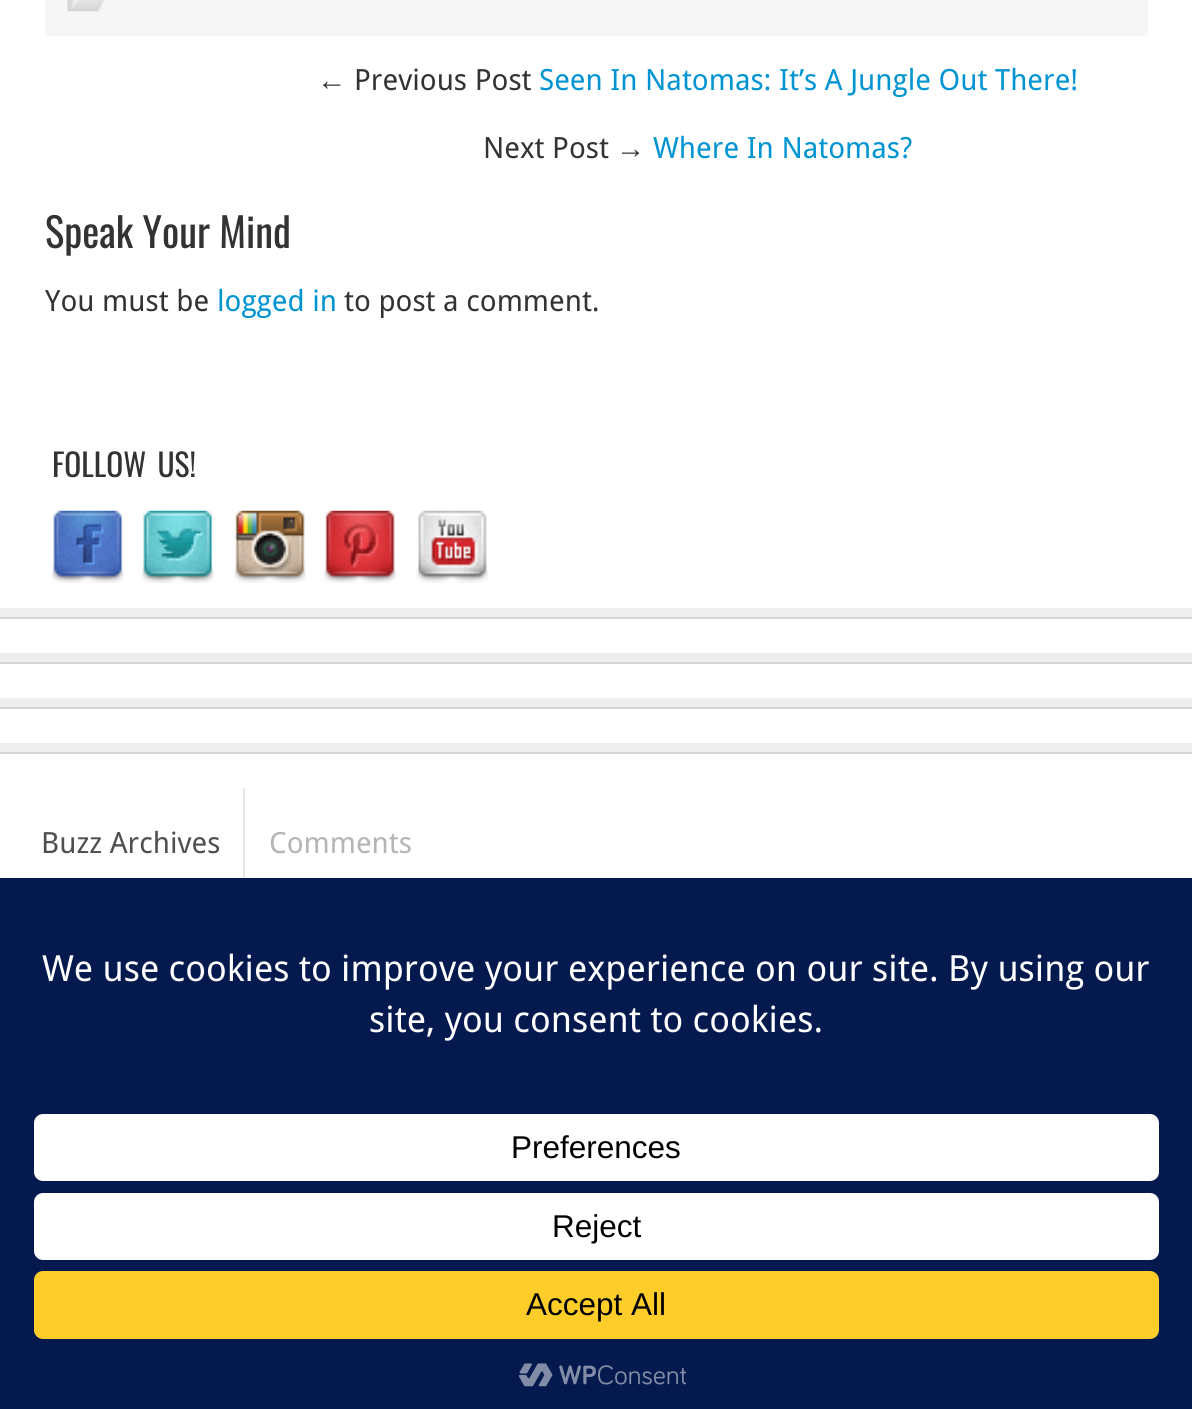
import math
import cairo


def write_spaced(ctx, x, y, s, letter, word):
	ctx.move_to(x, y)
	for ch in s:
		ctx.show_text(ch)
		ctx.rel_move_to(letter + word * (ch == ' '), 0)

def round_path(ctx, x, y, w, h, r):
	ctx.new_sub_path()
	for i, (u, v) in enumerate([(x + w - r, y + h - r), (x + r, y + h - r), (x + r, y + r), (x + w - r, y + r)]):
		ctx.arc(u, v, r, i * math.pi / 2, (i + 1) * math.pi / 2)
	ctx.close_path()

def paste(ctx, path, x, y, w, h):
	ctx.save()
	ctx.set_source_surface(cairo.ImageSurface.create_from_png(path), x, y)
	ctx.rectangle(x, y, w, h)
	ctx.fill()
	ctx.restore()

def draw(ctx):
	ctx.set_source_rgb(1, 1, 1)
	ctx.paint()
	ctx.set_source_rgb(0.961, 0.961, 0.961)
	ctx.rectangle(45, 0, 1103, 36)
	ctx.fill()
	paste(ctx, 'media/1.png', 67, 0, 37, 12)
	ctx.select_font_face('Liberation Sans')
	ctx.set_font_size(29.25)
	ctx.set_source_rgb(0.2, 0.2, 0.2)
	ctx.move_to(317, 90)
	ctx.show_text('←')
	ctx.select_font_face('Droid Sans')
	ctx.move_to(354, 90)
	ctx.show_text('Previous Post')
	ctx.set_source_rgb(0, 0.58, 0.824)
	ctx.move_to(539, 90)
	ctx.show_text('Seen In Natomas: It’s A Jungle Out There!')
	ctx.set_source_rgb(0.2, 0.2, 0.2)
	ctx.move_to(483, 158)
	ctx.show_text('Next Post')
	ctx.select_font_face('Liberation Sans')
	ctx.move_to(616, 158)
	ctx.show_text('→')
	ctx.select_font_face('Droid Sans')
	ctx.set_source_rgb(0, 0.58, 0.824)
	ctx.move_to(653, 158)
	ctx.show_text('Where In Natomas?')
	ctx.select_font_face('Oswald')
	ctx.set_font_size(40.5)
	ctx.set_source_rgb(0.2, 0.2, 0.2)
	ctx.move_to(45, 248)
	ctx.show_text('Speak Your Mind')
	ctx.select_font_face('Droid Sans')
	ctx.set_font_size(29.25)
	ctx.move_to(45, 311)
	ctx.show_text('You must be')
	ctx.set_source_rgb(0, 0.58, 0.824)
	ctx.move_to(217, 311)
	ctx.show_text('logged in')
	ctx.set_source_rgb(0.2, 0.2, 0.2)
	ctx.move_to(344, 311)
	ctx.show_text('to post a comment.')
	ctx.set_source_rgb(0.835, 0.835, 0.835)
	ctx.rectangle(0, 617, 1192, 2)
	ctx.fill()
	ctx.set_source_rgb(0.933, 0.933, 0.933)
	ctx.rectangle(0, 608, 1192, 9)
	ctx.fill()
	ctx.select_font_face('Oswald')
	ctx.set_font_size(31.5)
	ctx.set_source_rgb(0.2, 0.2, 0.2)
	write_spaced(ctx, 52, 477, 'FOLLOW US!', 0, 4)
	paste(ctx, 'media/2.png', 52, 510, 72, 73)
	paste(ctx, 'media/3.png', 142, 510, 72, 73)
	paste(ctx, 'media/4.png', 234, 510, 72, 73)
	paste(ctx, 'media/5.png', 324, 510, 72, 73)
	paste(ctx, 'media/6.png', 416, 510, 72, 73)
	ctx.set_source_rgb(0.835, 0.835, 0.835)
	ctx.rectangle(0, 662, 1192, 2)
	ctx.fill()
	ctx.set_source_rgb(0.933, 0.933, 0.933)
	ctx.rectangle(0, 653, 1192, 9)
	ctx.fill()
	ctx.set_source_rgb(0.835, 0.835, 0.835)
	ctx.rectangle(0, 707, 1192, 2)
	ctx.fill()
	ctx.set_source_rgb(0.933, 0.933, 0.933)
	ctx.rectangle(0, 698, 1192, 9)
	ctx.fill()
	ctx.set_source_rgb(0.835, 0.835, 0.835)
	ctx.rectangle(0, 752, 1192, 2)
	ctx.fill()
	ctx.set_source_rgb(0.933, 0.933, 0.933)
	ctx.rectangle(0, 743, 1192, 9)
	ctx.fill()
	ctx.set_source_rgb(0.902, 0.902, 0.902)
	ctx.rectangle(243, 788, 2, 90)
	ctx.fill()
	ctx.select_font_face('Droid Sans')
	ctx.set_font_size(29.25)
	ctx.set_source_rgb(0.31, 0.31, 0.31)
	ctx.move_to(41, 853)
	ctx.show_text('Buzz Archives')
	ctx.set_source_rgb(0.71, 0.71, 0.71)
	ctx.move_to(269, 853)
	ctx.show_text('Comments')
	ctx.set_source_rgb(0.016, 0.098, 0.306)
	ctx.rectangle(0, 878, 1192, 531)
	ctx.fill()
	ctx.set_font_size(36)
	ctx.set_source_rgb(1, 1, 1)
	ctx.move_to(42, 981)
	ctx.show_text('We use cookies to improve your experience on our site. By using our')
	ctx.move_to(369, 1032)
	ctx.show_text('site, you consent to cookies.')
	round_path(ctx, 34, 1114, 1125, 67, 9)
	ctx.fill()
	ctx.select_font_face('Liberation Sans')
	ctx.set_font_size(31.5)
	ctx.set_source_rgb(0, 0, 0)
	ctx.move_to(511, 1158)
	ctx.show_text('Preferences')
	ctx.set_source_rgb(1, 1, 1)
	round_path(ctx, 34, 1193, 1125, 67, 9)
	ctx.fill()
	ctx.set_source_rgb(0, 0, 0)
	ctx.move_to(552, 1237)
	ctx.show_text('Reject')
	ctx.set_source_rgb(1, 0.804, 0.165)
	round_path(ctx, 34, 1271, 1125, 68, 9)
	ctx.fill()
	ctx.set_source_rgb(0, 0, 0)
	ctx.move_to(526, 1315)
	ctx.show_text('Accept All')
	paste(ctx, 'media/7.png', 519, 1363, 168, 24)


surface = cairo.ImageSurface(cairo.FORMAT_RGB24, 1192, 1409)
ctx = cairo.Context(surface)
options = cairo.FontOptions()
options.set_hint_metrics(cairo.HINT_METRICS_OFF)
options.set_hint_style(cairo.HINT_STYLE_NONE)
ctx.set_font_options(options)
ctx.set_miter_limit(4)
draw(ctx)
surface.write_to_png('image.png')
